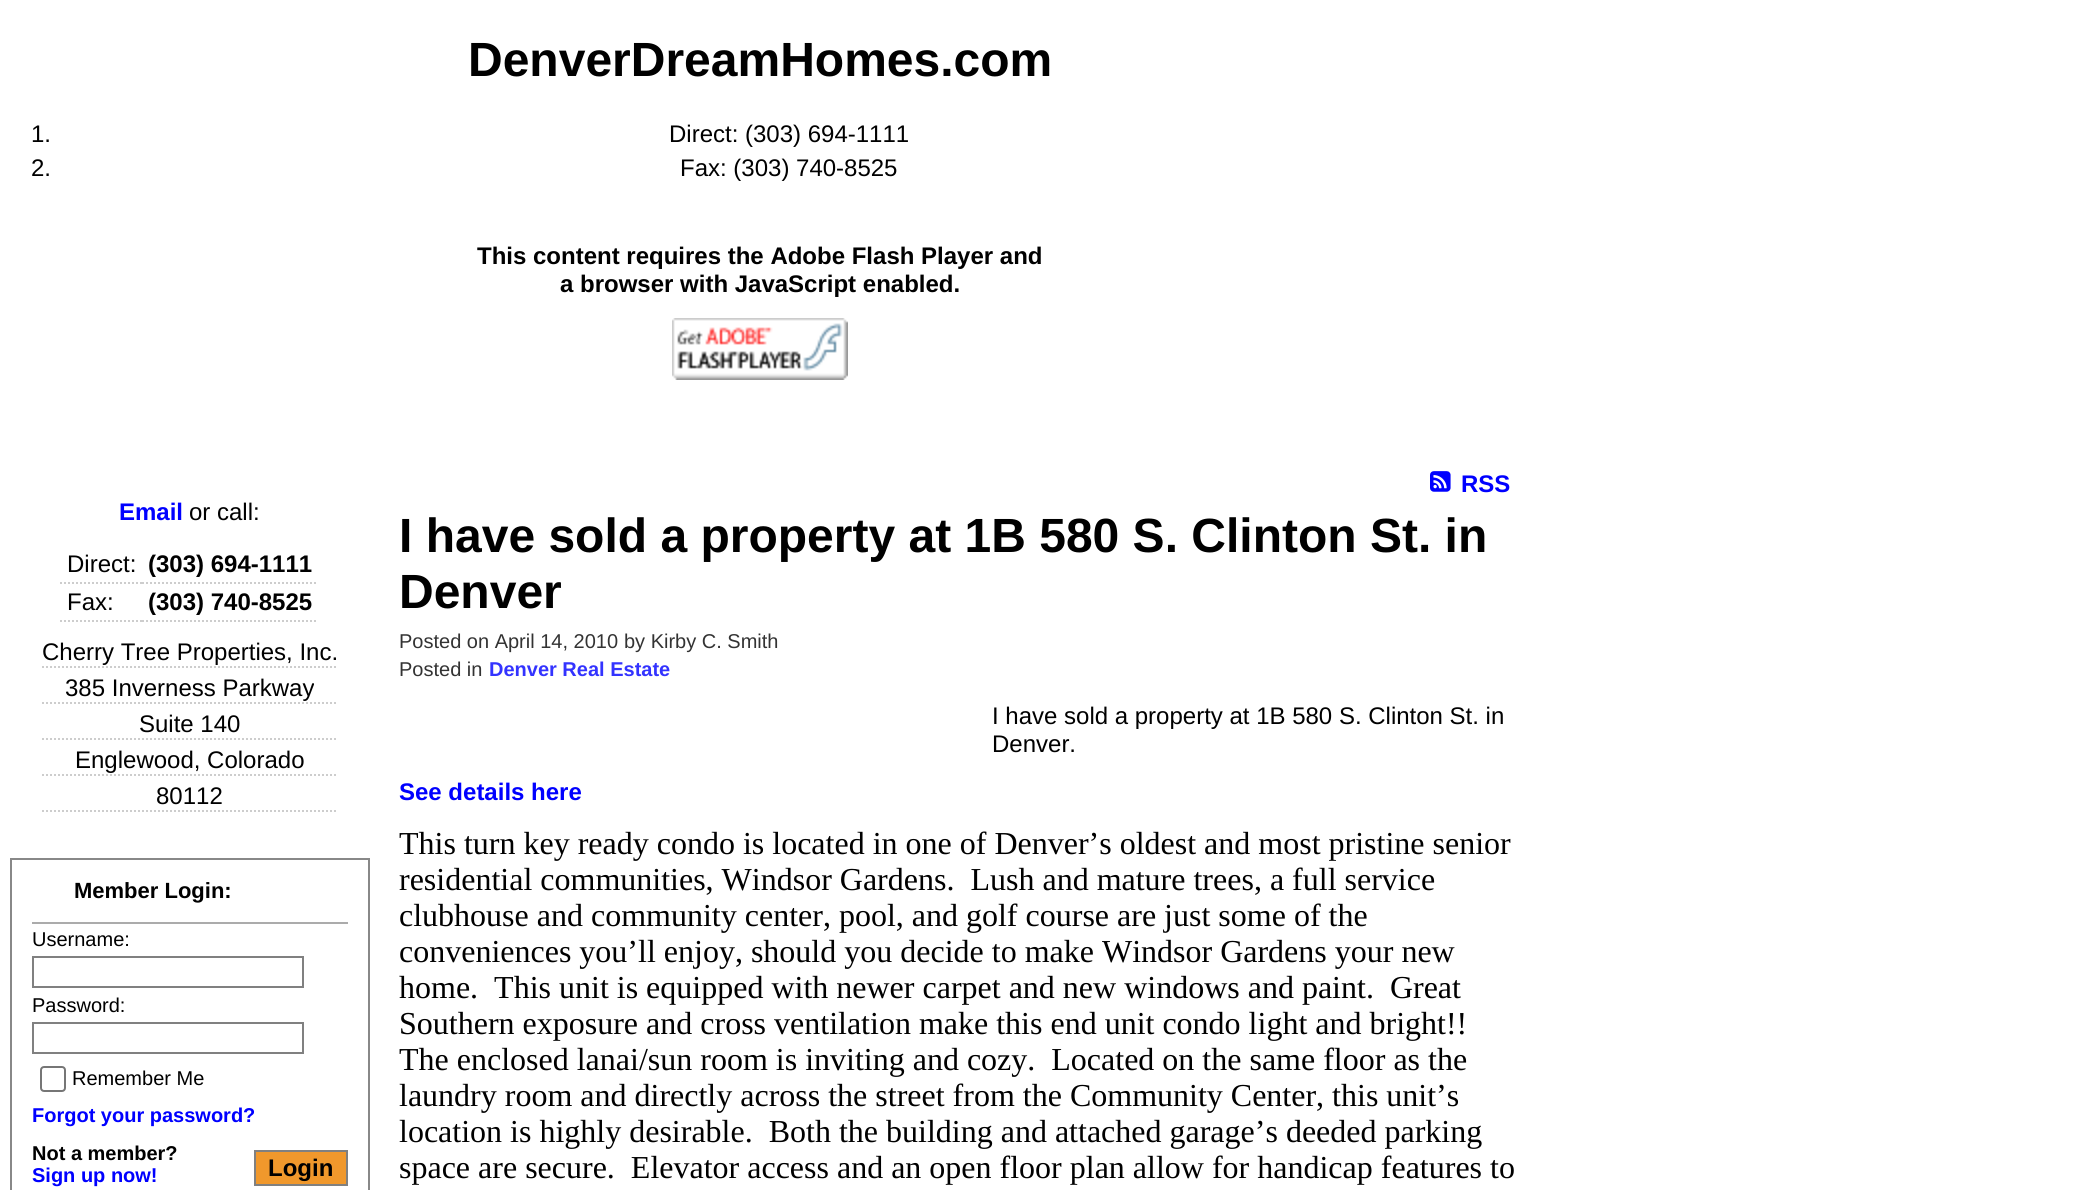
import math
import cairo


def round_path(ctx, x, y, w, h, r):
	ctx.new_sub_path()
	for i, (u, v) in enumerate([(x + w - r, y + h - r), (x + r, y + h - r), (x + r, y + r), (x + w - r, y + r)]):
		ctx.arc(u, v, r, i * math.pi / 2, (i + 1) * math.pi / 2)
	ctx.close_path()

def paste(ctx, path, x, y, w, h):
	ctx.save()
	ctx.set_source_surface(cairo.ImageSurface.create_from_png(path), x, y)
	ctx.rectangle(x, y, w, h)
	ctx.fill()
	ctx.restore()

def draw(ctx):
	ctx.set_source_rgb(1, 1, 1)
	ctx.paint()
	ctx.select_font_face('Liberation Sans', cairo.FONT_SLANT_NORMAL, cairo.FONT_WEIGHT_BOLD)
	ctx.set_font_size(48)
	ctx.set_source_rgb(0, 0, 0)
	ctx.move_to(468, 76)
	ctx.show_text('DenverDreamHomes.com')
	ctx.select_font_face('Liberation Sans')
	ctx.set_font_size(24)
	for x, y, s in [
		(31, 142, '1.'),
		(669, 142, 'Direct: (303) 694-1111'),
		(31, 176, '2.'),
		(680, 176, 'Fax: (303) 740-8525'),
	]:
		ctx.move_to(x, y)
		ctx.show_text(s)
	ctx.select_font_face('Liberation Sans', cairo.FONT_SLANT_NORMAL, cairo.FONT_WEIGHT_BOLD)
	ctx.move_to(477, 264)
	ctx.show_text('This content requires the Adobe Flash Player and')
	ctx.move_to(560, 292)
	ctx.show_text('a browser with JavaScript enabled.')
	paste(ctx, 'media/1.png', 672, 318, 176, 62)
	ctx.set_source_rgb(0, 0, 1)
	ctx.move_to(119, 520)
	ctx.show_text('Email')
	ctx.select_font_face('Liberation Sans')
	ctx.set_source_rgb(0, 0, 0)
	ctx.move_to(189, 520)
	ctx.show_text('or call:')
	ctx.new_path()
	ctx.move_to(60, 583)
	ctx.line_to(142, 583)
	ctx.set_source_rgb(0.804, 0.804, 0.804)
	ctx.set_dash([2, 2])
	ctx.stroke()
	ctx.set_source_rgb(0, 0, 0)
	ctx.move_to(67, 572)
	ctx.show_text('Direct:')
	ctx.new_path()
	ctx.move_to(142, 583)
	ctx.line_to(318, 583)
	ctx.set_source_rgb(0.804, 0.804, 0.804)
	ctx.stroke()
	ctx.select_font_face('Liberation Sans', cairo.FONT_SLANT_NORMAL, cairo.FONT_WEIGHT_BOLD)
	ctx.set_source_rgb(0, 0, 0)
	ctx.move_to(148, 572)
	ctx.show_text('(303) 694-1111')
	ctx.new_path()
	ctx.move_to(60, 621)
	ctx.line_to(142, 621)
	ctx.set_source_rgb(0.804, 0.804, 0.804)
	ctx.stroke()
	ctx.select_font_face('Liberation Sans')
	ctx.set_source_rgb(0, 0, 0)
	ctx.move_to(67, 610)
	ctx.show_text('Fax:')
	ctx.new_path()
	ctx.move_to(142, 621)
	ctx.line_to(318, 621)
	ctx.set_source_rgb(0.804, 0.804, 0.804)
	ctx.stroke()
	ctx.select_font_face('Liberation Sans', cairo.FONT_SLANT_NORMAL, cairo.FONT_WEIGHT_BOLD)
	ctx.set_source_rgb(0, 0, 0)
	ctx.move_to(148, 610)
	ctx.show_text('(303) 740-8525')
	ctx.new_path()
	ctx.move_to(42, 667)
	ctx.line_to(338, 667)
	ctx.set_source_rgb(0.804, 0.804, 0.804)
	ctx.stroke()
	ctx.select_font_face('Liberation Sans')
	ctx.set_source_rgb(0, 0, 0)
	ctx.move_to(42, 660)
	ctx.show_text('Cherry Tree Properties, Inc.')
	ctx.new_path()
	ctx.move_to(42, 703)
	ctx.line_to(338, 703)
	ctx.set_source_rgb(0.804, 0.804, 0.804)
	ctx.stroke()
	ctx.set_source_rgb(0, 0, 0)
	ctx.move_to(65, 696)
	ctx.show_text('385 Inverness Parkway')
	ctx.new_path()
	ctx.move_to(42, 739)
	ctx.line_to(338, 739)
	ctx.set_source_rgb(0.804, 0.804, 0.804)
	ctx.stroke()
	ctx.set_source_rgb(0, 0, 0)
	ctx.move_to(139, 732)
	ctx.show_text('Suite 140')
	ctx.new_path()
	ctx.move_to(42, 775)
	ctx.line_to(338, 775)
	ctx.set_source_rgb(0.804, 0.804, 0.804)
	ctx.stroke()
	ctx.set_source_rgb(0, 0, 0)
	ctx.move_to(75, 768)
	ctx.show_text('Englewood, Colorado')
	ctx.new_path()
	ctx.move_to(42, 811)
	ctx.line_to(338, 811)
	ctx.set_source_rgb(0.804, 0.804, 0.804)
	ctx.stroke()
	ctx.set_source_rgb(0, 0, 0)
	ctx.move_to(156, 804)
	ctx.show_text('80112')
	ctx.rectangle(11, 859, 358, 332)
	ctx.set_source_rgb(0.533, 0.533, 0.533)
	ctx.set_dash([])
	ctx.stroke()
	ctx.set_source_rgb(0.671, 0.671, 0.671)
	ctx.rectangle(32, 922, 316, 2)
	ctx.fill()
	ctx.select_font_face('Liberation Sans', cairo.FONT_SLANT_NORMAL, cairo.FONT_WEIGHT_BOLD)
	ctx.set_font_size(22)
	ctx.set_source_rgb(0, 0, 0)
	ctx.move_to(74, 898)
	ctx.show_text('Member Login:')
	ctx.select_font_face('Liberation Sans')
	ctx.set_font_size(20)
	ctx.move_to(32, 946)
	ctx.show_text('Username:')
	ctx.rectangle(33, 957, 270, 30)
	ctx.set_source_rgb(0.502, 0.502, 0.502)
	ctx.stroke()
	ctx.set_source_rgb(0, 0, 0)
	ctx.move_to(32, 1012)
	ctx.show_text('Password:')
	ctx.rectangle(33, 1023, 270, 30)
	ctx.set_source_rgb(0.502, 0.502, 0.502)
	ctx.stroke()
	round_path(ctx, 41, 1067, 24, 24, 3)
	ctx.set_source_rgb(0.463, 0.463, 0.463)
	ctx.stroke()
	ctx.set_source_rgb(0, 0, 0)
	ctx.move_to(72, 1085)
	ctx.show_text('Remember Me')
	ctx.select_font_face('Liberation Sans', cairo.FONT_SLANT_NORMAL, cairo.FONT_WEIGHT_BOLD)
	ctx.set_source_rgb(0, 0, 1)
	ctx.move_to(32, 1122)
	ctx.show_text('Forgot your password?')
	ctx.set_source_rgb(0, 0, 0)
	ctx.move_to(32, 1160)
	ctx.show_text('Not a member?')
	ctx.set_source_rgb(0, 0, 1)
	ctx.move_to(32, 1182)
	ctx.show_text('Sign up now!')
	ctx.set_source_rgb(0.941, 0.596, 0.173)
	ctx.rectangle(255, 1151, 92, 34)
	ctx.fill_preserve()
	ctx.set_source_rgb(0.502, 0.502, 0.502)
	ctx.stroke()
	ctx.set_font_size(24)
	ctx.set_source_rgb(0, 0, 0)
	ctx.move_to(268, 1176)
	ctx.show_text('Login')
	paste(ctx, 'media/2.png', 1430, 471, 21, 21)
	ctx.set_source_rgb(0, 0, 1)
	ctx.move_to(1461, 492)
	ctx.show_text('RSS')
	ctx.set_font_size(48)
	ctx.set_source_rgb(0, 0, 0)
	ctx.move_to(399, 552)
	ctx.show_text('I have sold a property at 1B 580 S. Clinton St. in')
	ctx.move_to(399, 608)
	ctx.show_text('Denver')
	ctx.select_font_face('Liberation Sans')
	ctx.set_font_size(20)
	ctx.set_source_rgb(0.2, 0.2, 0.2)
	for x, y, s in [
		(399, 648, 'Posted on April 14, 2010'),
		(624, 648, 'by Kirby C. Smith'),
		(399, 676, 'Posted in'),
	]:
		ctx.move_to(x, y)
		ctx.show_text(s)
	ctx.select_font_face('Liberation Sans', cairo.FONT_SLANT_NORMAL, cairo.FONT_WEIGHT_BOLD)
	ctx.set_source_rgb(0.2, 0.2, 1)
	ctx.move_to(489, 676)
	ctx.show_text('Denver Real Estate')
	ctx.select_font_face('Liberation Sans')
	ctx.set_font_size(24)
	ctx.set_source_rgb(0, 0, 0)
	ctx.move_to(992, 724)
	ctx.show_text('I have sold a property at 1B 580 S. Clinton St. in')
	ctx.move_to(992, 752)
	ctx.show_text('Denver.')
	ctx.select_font_face('Liberation Sans', cairo.FONT_SLANT_NORMAL, cairo.FONT_WEIGHT_BOLD)
	ctx.set_source_rgb(0, 0, 1)
	ctx.move_to(399, 800)
	ctx.show_text('See details here')
	ctx.select_font_face('Liberation Serif')
	ctx.set_font_size(32)
	ctx.set_source_rgb(0, 0, 0)
	for x, y, s in [
		(399, 854, 'This turn key ready condo is located in one of Denver’s oldest and most pristine senior'),
		(399, 890, 'residential communities, Windsor Gardens.  Lush and mature trees, a full service'),
		(399, 926, 'clubhouse and community center, pool, and golf course are just some of the'),
		(399, 962, 'conveniences you’ll enjoy, should you decide to make Windsor Gardens your new'),
		(399, 998, 'home.  This unit is equipped with newer carpet and new windows and paint.  Great'),
		(399, 1034, 'Southern exposure and cross ventilation make this end unit condo light and bright!!'),
		(399, 1070, 'The enclosed lanai/sun room is inviting and cozy.  Located on the same floor as the'),
		(399, 1106, 'laundry room and directly across the street from the Community Center, this unit’s'),
		(399, 1142, 'location is highly desirable.  Both the building and attached garage’s deeded parking'),
		(399, 1178, 'space are secure.  Elevator access and an open floor plan allow for handicap features to'),
	]:
		ctx.move_to(x, y)
		ctx.show_text(s)


surface = cairo.ImageSurface(cairo.FORMAT_RGB24, 2089, 1190)
ctx = cairo.Context(surface)
options = cairo.FontOptions()
options.set_hint_metrics(cairo.HINT_METRICS_OFF)
options.set_hint_style(cairo.HINT_STYLE_NONE)
ctx.set_font_options(options)
ctx.set_miter_limit(4)
draw(ctx)
surface.write_to_png('image.png')
